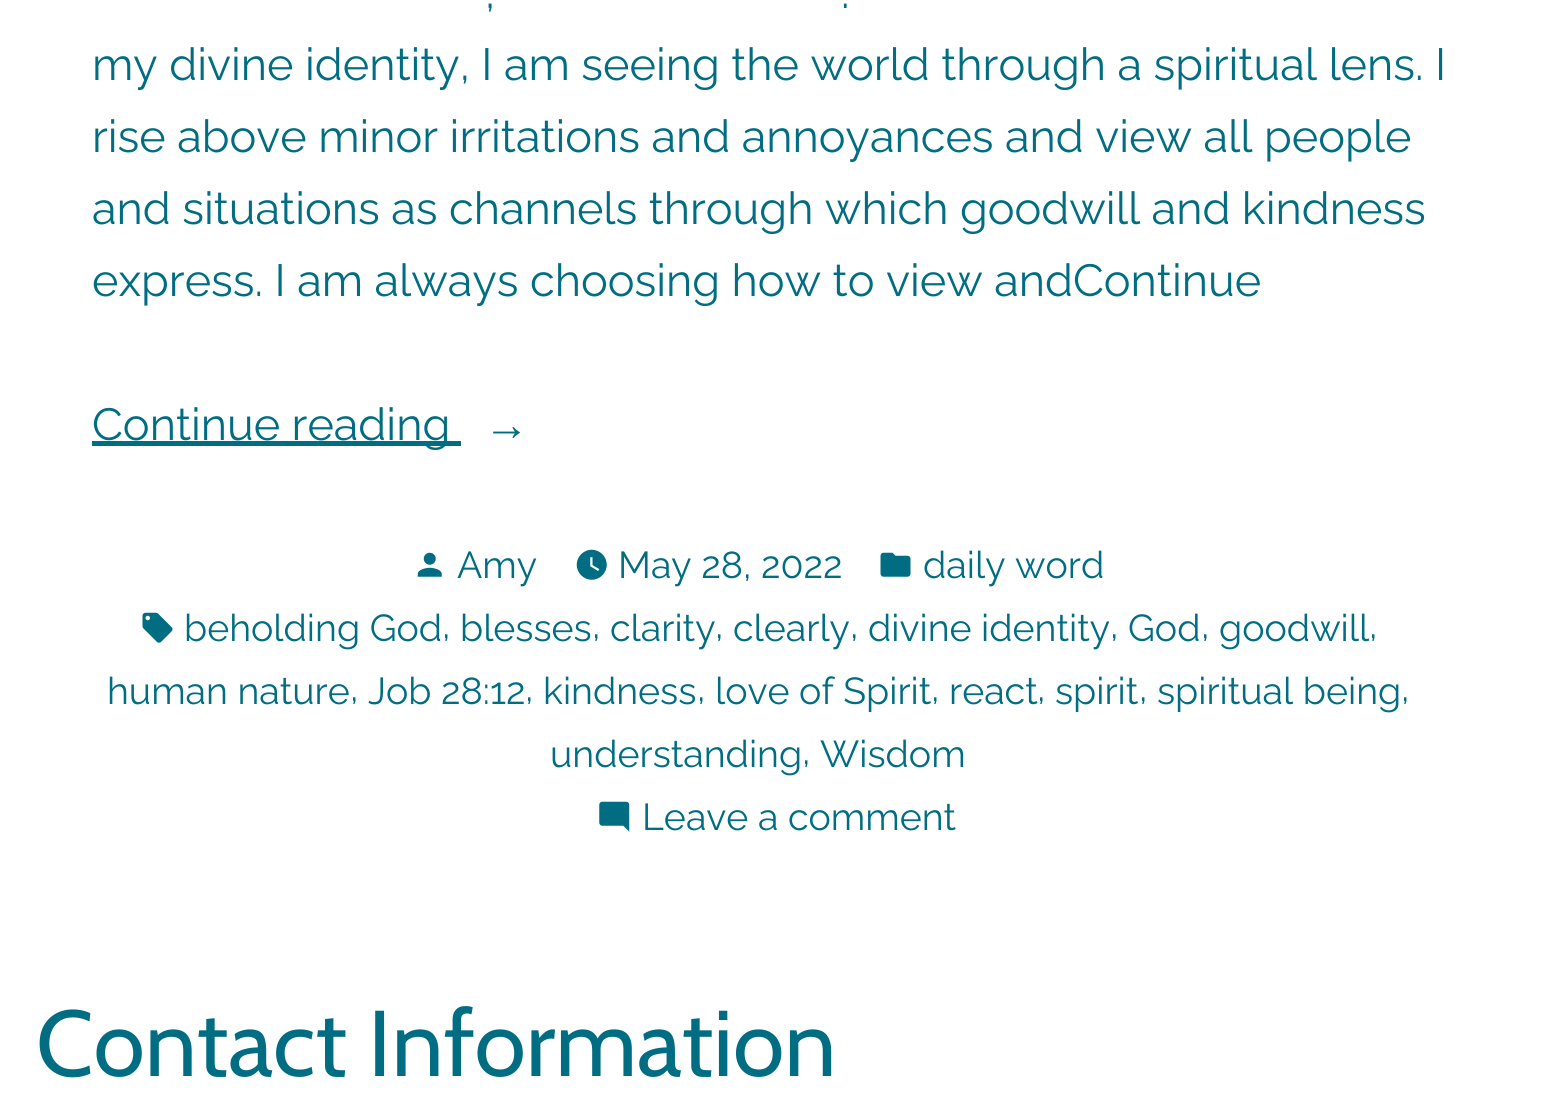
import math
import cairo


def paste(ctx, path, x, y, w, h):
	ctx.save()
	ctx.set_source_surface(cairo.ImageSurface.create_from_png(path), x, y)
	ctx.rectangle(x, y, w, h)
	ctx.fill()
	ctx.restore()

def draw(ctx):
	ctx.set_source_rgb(1, 1, 1)
	ctx.paint()
	ctx.select_font_face('Raleway')
	ctx.set_font_size(45)
	ctx.set_source_rgb(0.004, 0.427, 0.51)
	for x, y, s in [
		(485, 8, ','),
		(841, 8, '.'),
		(92, 80, 'my divine identity, I am seeing the world through a spiritual lens. I'),
		(92, 152, 'rise above minor irritations and annoyances and view all people'),
		(92, 224, 'and situations as channels through which goodwill and kindness'),
		(92, 296, 'express. I am always choosing how to view andContinue'),
	]:
		ctx.move_to(x, y)
		ctx.show_text(s)
	ctx.rectangle(92, 441, 369, 5)
	ctx.fill()
	ctx.move_to(92, 440)
	ctx.show_text('Continue reading')
	ctx.select_font_face('Liberation Serif')
	ctx.move_to(484, 440)
	ctx.show_text('→')
	paste(ctx, 'media/1.png', 417, 552, 25, 25)
	ctx.select_font_face('Raleway')
	ctx.set_font_size(37.5)
	ctx.move_to(457, 578)
	ctx.show_text('Amy')
	paste(ctx, 'media/2.png', 576, 549, 31, 31)
	ctx.move_to(618, 578)
	ctx.show_text('May 28, 2022')
	paste(ctx, 'media/3.png', 880, 552, 31, 25)
	ctx.move_to(923, 578)
	ctx.show_text('daily word')
	paste(ctx, 'media/4.png', 142, 612, 31, 31)
	for x, y, s in [
		(184, 641, 'beholding God'),
		(442, 638, ','),
		(460, 641, 'blesses'),
		(592, 638, ','),
		(610, 641, 'clarity'),
		(715, 638, ','),
		(733, 641, 'clearly'),
		(850, 638, ','),
		(868, 641, 'divine identity'),
		(1110, 638, ','),
		(1128, 641, 'God'),
		(1201, 638, ','),
		(1219, 641, 'goodwill'),
		(1369, 638, ','),
		(107, 704, 'human nature'),
		(350, 701, ','),
		(368, 704, 'Job 28:12'),
		(525, 701, ','),
		(543, 704, 'kindness'),
		(697, 701, ','),
		(715, 704, 'love of Spirit'),
		(931, 701, ','),
		(949, 704, 'react'),
		(1037, 701, ','),
		(1055, 704, 'spirit'),
		(1139, 701, ','),
		(1157, 704, 'spiritual being'),
		(1401, 701, ','),
		(550, 767, 'understanding'),
		(802, 764, ','),
		(820, 767, 'Wisdom'),
	]:
		ctx.move_to(x, y)
		ctx.show_text(s)
	paste(ctx, 'media/5.png', 599, 801, 31, 31)
	ctx.move_to(642, 830)
	ctx.show_text('Leave a comment')
	ctx.select_font_face('Cabin')
	ctx.set_font_size(93.25)
	ctx.move_to(36, 1076)
	ctx.show_text('Contact Information')


surface = cairo.ImageSurface(cairo.FORMAT_RGB24, 1551, 1093)
ctx = cairo.Context(surface)
options = cairo.FontOptions()
options.set_hint_metrics(cairo.HINT_METRICS_OFF)
options.set_hint_style(cairo.HINT_STYLE_NONE)
ctx.set_font_options(options)
ctx.set_miter_limit(4)
draw(ctx)
surface.write_to_png('image.png')
